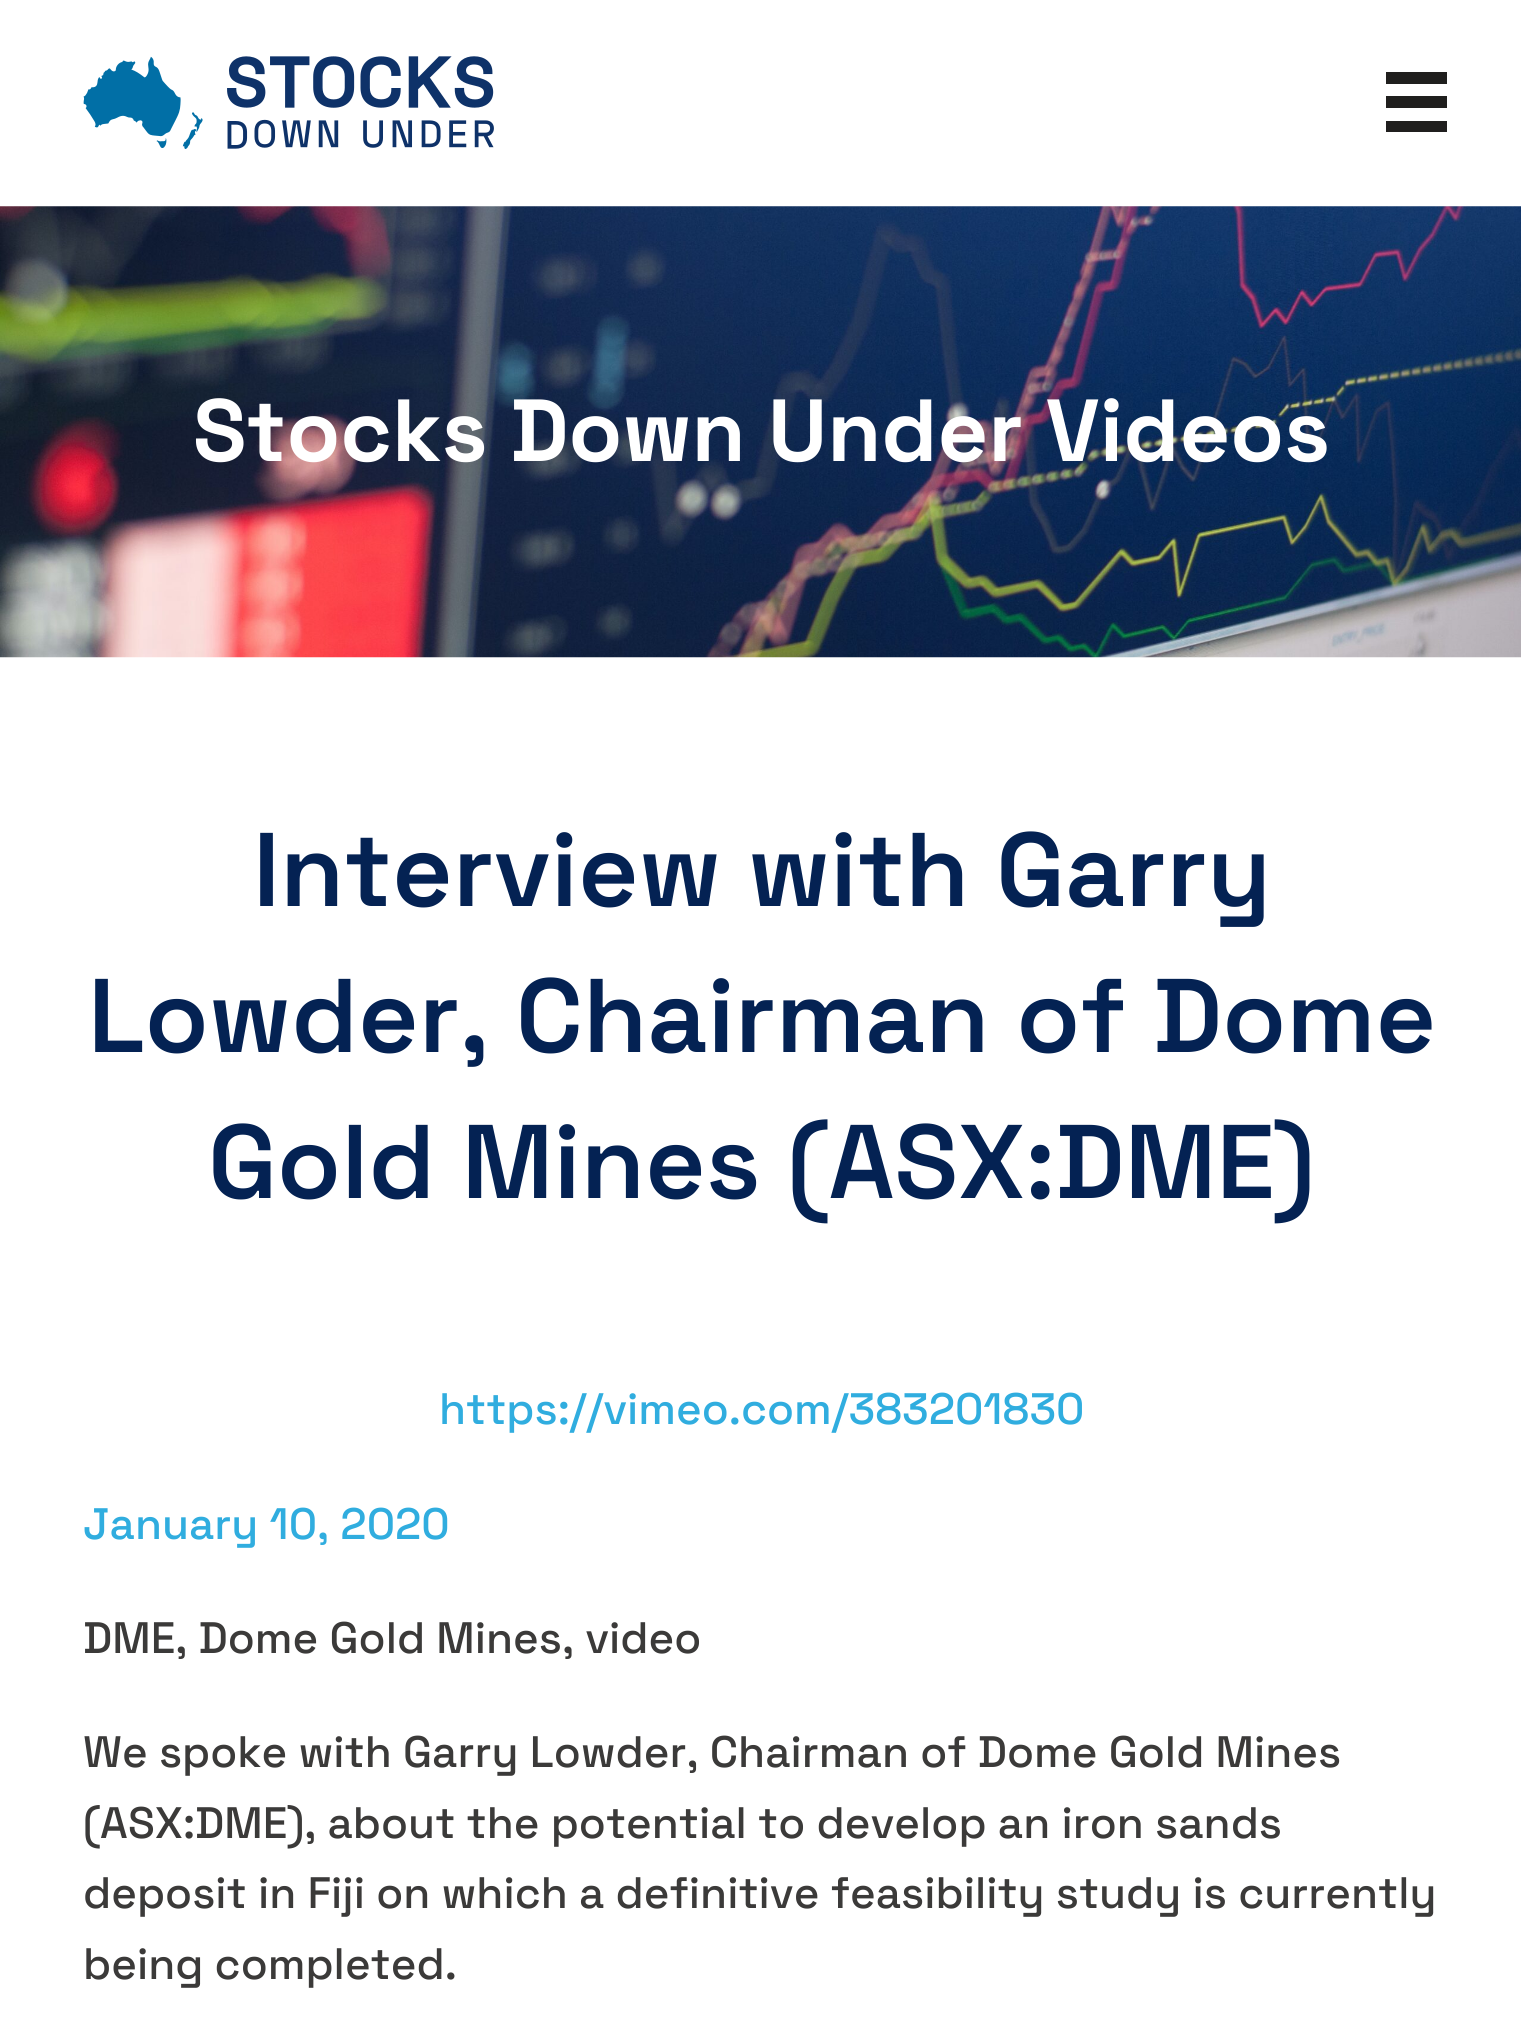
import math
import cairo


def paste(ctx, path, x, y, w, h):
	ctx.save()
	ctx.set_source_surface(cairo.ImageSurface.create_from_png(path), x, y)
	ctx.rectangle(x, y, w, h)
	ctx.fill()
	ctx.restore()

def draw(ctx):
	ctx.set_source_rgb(1, 1, 1)
	ctx.paint()
	paste(ctx, 'media/1.png', 83, 56, 411, 93)
	ctx.set_source_rgb(0.125, 0.122, 0.118)
	ctx.rectangle(1386, 72, 61, 12)
	ctx.rectangle(1386, 96, 61, 12)
	ctx.rectangle(1386, 121, 61, 11)
	ctx.fill()
	paste(ctx, 'media/2.png', 0, 206, 1521, 452)
	ctx.select_font_face('Space Grotesk', cairo.FONT_SLANT_NORMAL, cairo.FONT_WEIGHT_BOLD)
	ctx.set_font_size(88)
	ctx.set_source_rgb(1, 1, 1)
	ctx.move_to(193, 461)
	ctx.show_text('Stocks Down Under Videos')
	ctx.select_font_face('Space Grotesk SemiBold')
	ctx.set_font_size(104.5)
	ctx.set_source_rgb(0.016, 0.133, 0.325)
	for x, y, s in [
		(253, 906, 'Interview with Garry'),
		(88, 1052, 'Lowder, Chairman of Dome'),
		(208, 1198, 'Gold Mines (ASX:DME)'),
	]:
		ctx.move_to(x, y)
		ctx.show_text(s)
	ctx.select_font_face('Space Grotesk Medium')
	ctx.set_font_size(44)
	ctx.set_source_rgb(0.188, 0.678, 0.875)
	ctx.move_to(439, 1424)
	ctx.show_text('https://vimeo.com/383201830')
	ctx.move_to(83, 1539)
	ctx.show_text('January 10, 2020')
	ctx.set_source_rgb(0.231, 0.227, 0.224)
	for x, y, s in [
		(83, 1653, 'DME, Dome Gold Mines, video'),
		(83, 1767, 'We spoke with Garry Lowder, Chairman of Dome Gold Mines'),
		(83, 1838, '(ASX:DME), about the potential to develop an iron sands'),
		(83, 1908, 'deposit in Fiji on which a definitive feasibility study is currently'),
		(83, 1979, 'being completed.'),
	]:
		ctx.move_to(x, y)
		ctx.show_text(s)


surface = cairo.ImageSurface(cairo.FORMAT_RGB24, 1521, 2021)
ctx = cairo.Context(surface)
options = cairo.FontOptions()
options.set_hint_metrics(cairo.HINT_METRICS_OFF)
options.set_hint_style(cairo.HINT_STYLE_NONE)
ctx.set_font_options(options)
ctx.set_miter_limit(4)
draw(ctx)
surface.write_to_png('image.png')
